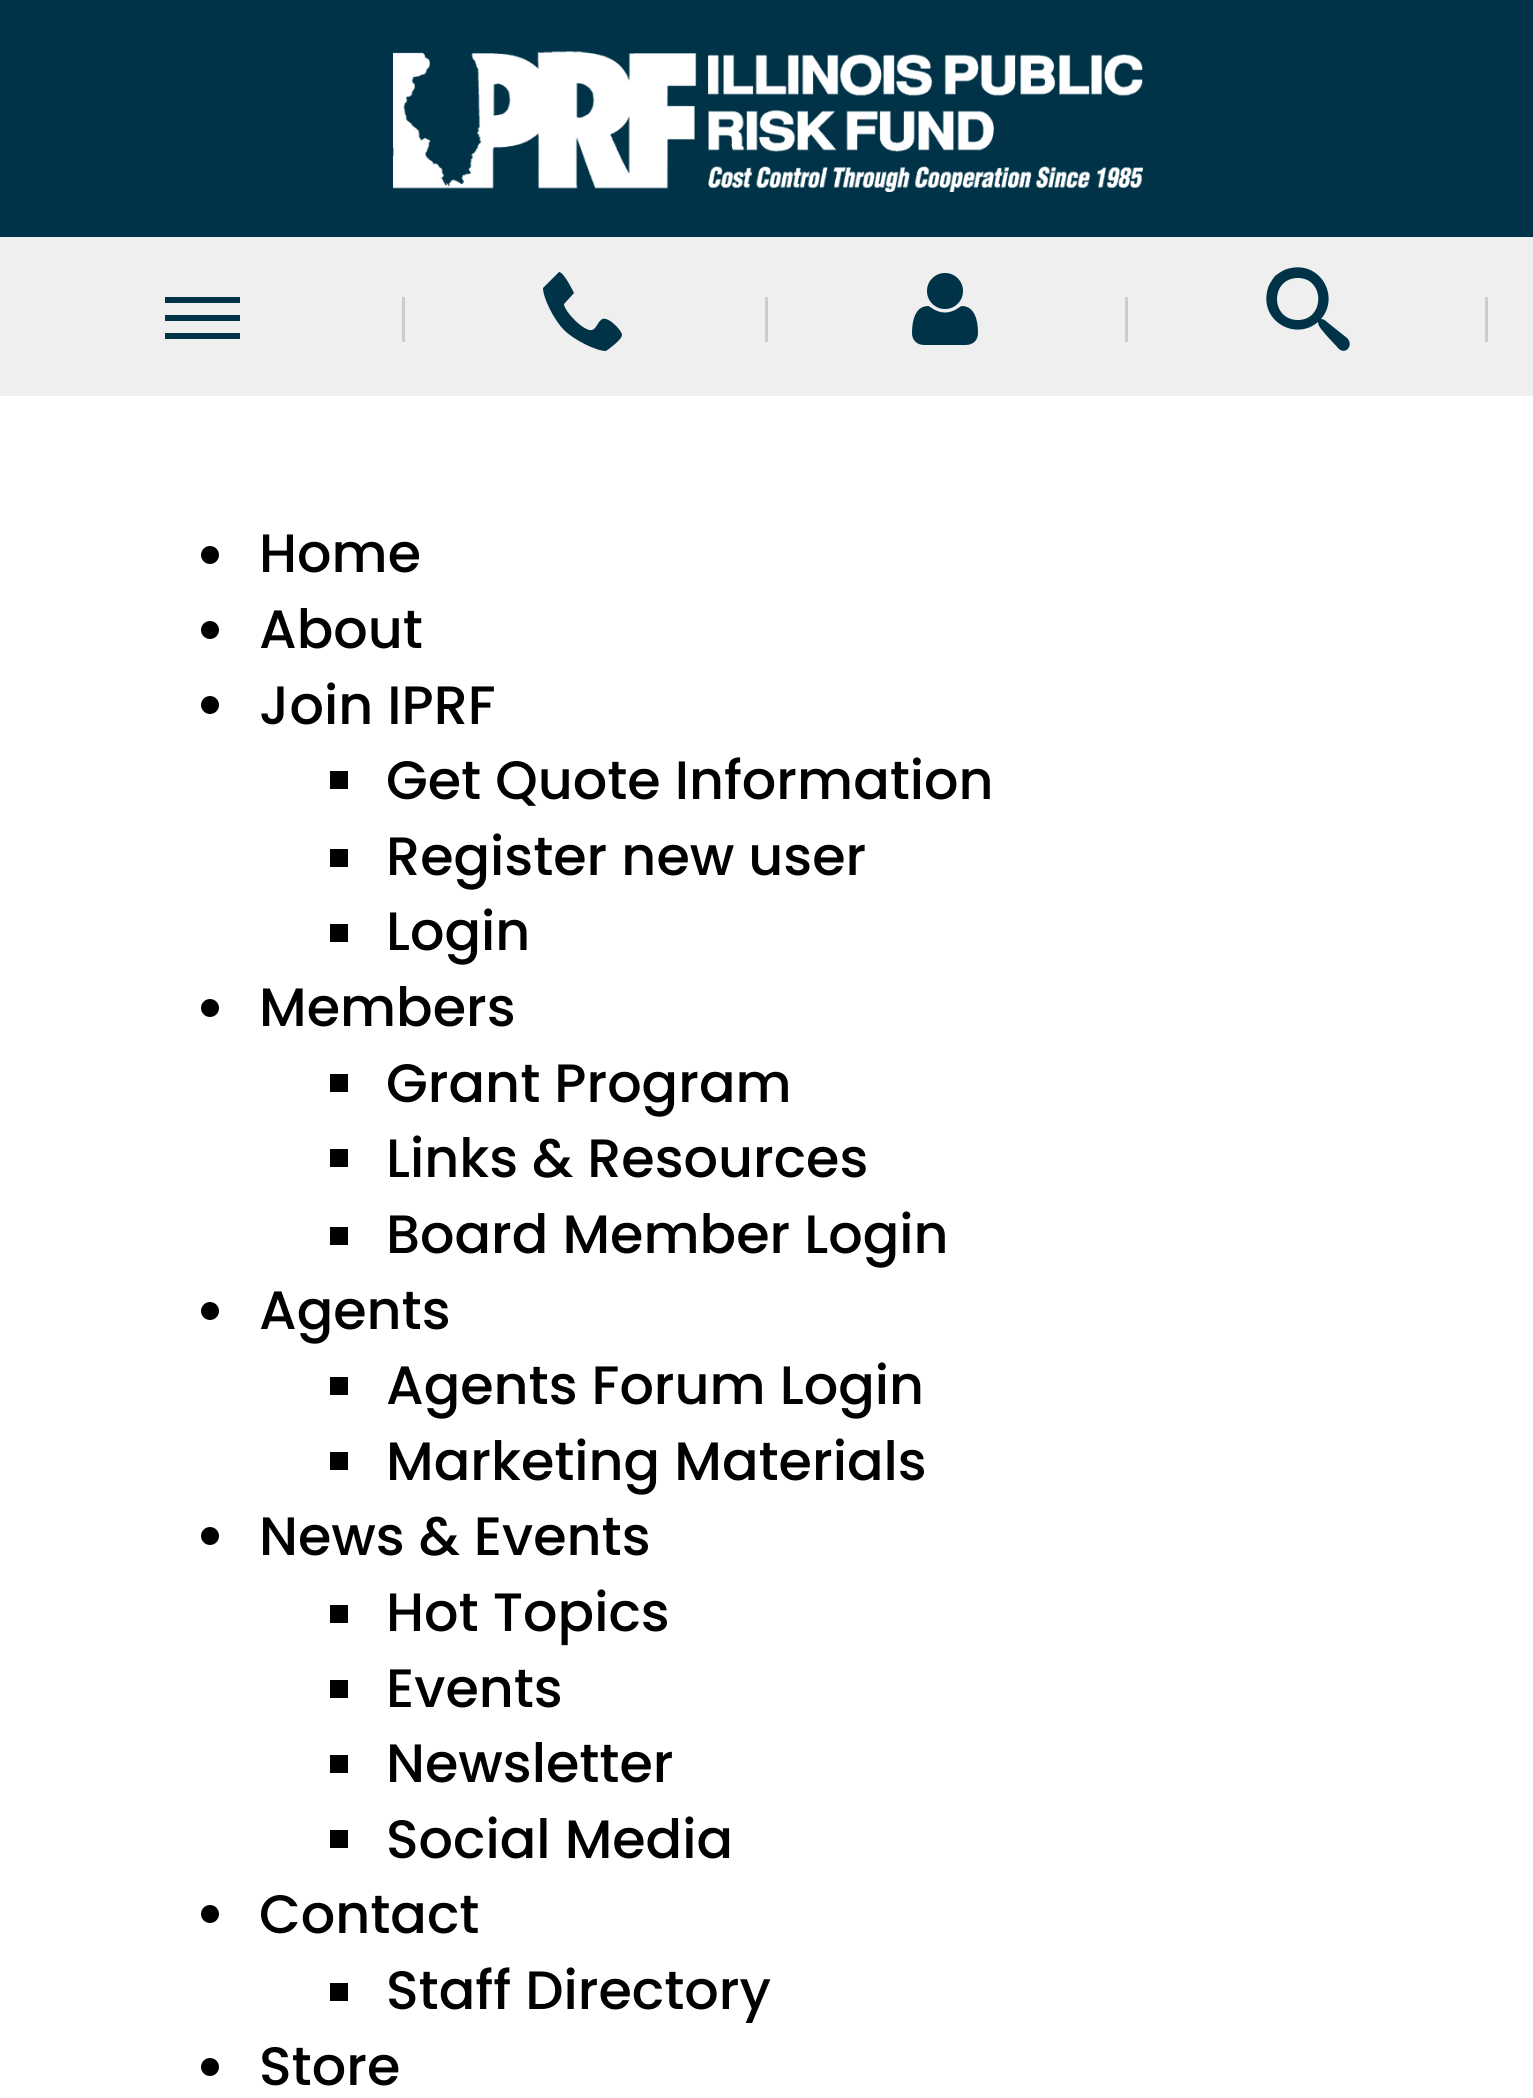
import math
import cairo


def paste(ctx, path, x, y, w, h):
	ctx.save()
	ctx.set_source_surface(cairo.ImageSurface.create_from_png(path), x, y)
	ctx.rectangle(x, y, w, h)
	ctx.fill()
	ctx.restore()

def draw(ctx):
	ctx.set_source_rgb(1, 1, 1)
	ctx.paint()
	ctx.set_source_rgb(0, 0.2, 0.282)
	ctx.rectangle(0, 0, 1533, 237)
	ctx.fill()
	paste(ctx, 'media/1.png', 393, 51, 750, 141)
	ctx.set_source_rgb(0.937, 0.937, 0.937)
	ctx.rectangle(0, 237, 1533, 159)
	ctx.fill()
	ctx.set_source_rgb(0, 0.2, 0.282)
	ctx.rectangle(165, 315, 75, 6)
	ctx.rectangle(165, 297, 75, 6)
	ctx.rectangle(165, 333, 75, 6)
	ctx.fill()
	ctx.set_source_rgb(0.8, 0.8, 0.8)
	ctx.rectangle(402, 297, 3, 45)
	ctx.fill()
	ctx.set_source_rgb(0, 0.2, 0.282)
	ctx.new_path()
	ctx.move_to(601, 320)
	ctx.curve_to(598, 322, 596, 329, 592, 330)
	ctx.curve_to(584, 332, 564, 311, 564, 304)
	ctx.line_to(574, 293)
	ctx.curve_to(574, 293, 564, 272, 559, 272)
	ctx.line_to(543, 288)
	ctx.curve_to(543, 298, 554, 320, 564, 330)
	ctx.curve_to(574, 340, 596, 351, 606, 351)
	ctx.curve_to(606, 351, 622, 340, 622, 335)
	ctx.curve_to(622, 330, 606, 314, 601, 320)
	ctx.close_path()
	ctx.fill()
	ctx.set_source_rgb(0.8, 0.8, 0.8)
	ctx.rectangle(765, 297, 3, 45)
	ctx.fill()
	paste(ctx, 'media/2.png', 912, 273, 66, 72)
	ctx.rectangle(1125, 297, 3, 45)
	ctx.fill()
	ctx.set_source_rgb(0, 0.2, 0.282)
	ctx.new_path()
	ctx.move_to(1347, 338)
	ctx.line_to(1327, 322)
	ctx.curve_to(1325, 320, 1323, 319, 1321, 319)
	ctx.curve_to(1340, 297, 1321, 262, 1291, 268)
	ctx.curve_to(1285, 269, 1280, 272, 1275, 276)
	ctx.curve_to(1271, 281, 1268, 286, 1267, 292)
	ctx.curve_to(1261, 322, 1296, 341, 1318, 322)
	ctx.curve_to(1318, 327, 1324, 332, 1326, 335)
	ctx.line_to(1339, 349)
	ctx.curve_to(1346, 355, 1354, 345, 1347, 338)
	ctx.close_path()
	ctx.move_to(1298, 320)
	ctx.curve_to(1270, 320, 1270, 278, 1298, 278)
	ctx.curve_to(1325, 278, 1325, 320, 1298, 320)
	ctx.close_path()
	ctx.fill()
	ctx.set_source_rgb(0.8, 0.8, 0.8)
	ctx.rectangle(1485, 297, 3, 45)
	ctx.fill()
	ctx.set_source_rgb(0, 0, 0)
	ctx.arc(210, 555, 9, 0, 2 * math.pi)
	ctx.fill()
	ctx.select_font_face('Poppins Medium')
	ctx.set_font_size(54)
	ctx.move_to(259, 572)
	ctx.show_text('Home')
	ctx.new_path()
	ctx.arc(210, 630, 9, 0, 2 * math.pi)
	ctx.fill()
	ctx.move_to(259, 648)
	ctx.show_text('About')
	ctx.new_path()
	ctx.arc(210, 705, 9, 0, 2 * math.pi)
	ctx.fill()
	ctx.move_to(259, 724)
	ctx.show_text('Join IPRF')
	ctx.rectangle(330, 771, 18, 18)
	ctx.fill()
	ctx.move_to(386, 799)
	ctx.show_text('Get Quote Information')
	ctx.rectangle(330, 849, 18, 18)
	ctx.fill()
	ctx.move_to(386, 875)
	ctx.show_text('Register new user')
	ctx.rectangle(330, 924, 18, 18)
	ctx.fill()
	ctx.move_to(386, 950)
	ctx.show_text('Login')
	ctx.new_path()
	ctx.arc(210, 1008, 9, 0, 2 * math.pi)
	ctx.fill()
	ctx.move_to(259, 1026)
	ctx.show_text('Members')
	ctx.rectangle(330, 1074, 18, 18)
	ctx.fill()
	ctx.move_to(386, 1102)
	ctx.show_text('Grant Program')
	ctx.rectangle(330, 1149, 18, 18)
	ctx.fill()
	ctx.move_to(386, 1177)
	ctx.show_text('Links & Resources')
	ctx.rectangle(330, 1227, 18, 18)
	ctx.fill()
	ctx.move_to(386, 1253)
	ctx.show_text('Board Member Login')
	ctx.new_path()
	ctx.arc(210, 1311, 9, 0, 2 * math.pi)
	ctx.fill()
	ctx.move_to(259, 1329)
	ctx.show_text('Agents')
	ctx.rectangle(330, 1377, 18, 18)
	ctx.fill()
	ctx.move_to(386, 1404)
	ctx.show_text('Agents Forum Login')
	ctx.rectangle(330, 1452, 18, 18)
	ctx.fill()
	ctx.move_to(386, 1480)
	ctx.show_text('Marketing Materials')
	ctx.new_path()
	ctx.arc(210, 1536, 9, 0, 2 * math.pi)
	ctx.fill()
	ctx.move_to(259, 1555)
	ctx.show_text('News & Events')
	ctx.rectangle(330, 1605, 18, 18)
	ctx.fill()
	ctx.move_to(386, 1631)
	ctx.show_text('Hot Topics')
	ctx.rectangle(330, 1680, 18, 18)
	ctx.fill()
	ctx.move_to(386, 1707)
	ctx.show_text('Events')
	ctx.rectangle(330, 1755, 18, 18)
	ctx.fill()
	ctx.move_to(386, 1782)
	ctx.show_text('Newsletter')
	ctx.rectangle(330, 1830, 18, 18)
	ctx.fill()
	ctx.move_to(386, 1858)
	ctx.show_text('Social Media')
	ctx.new_path()
	ctx.arc(210, 1914, 9, 0, 2 * math.pi)
	ctx.fill()
	ctx.move_to(259, 1933)
	ctx.show_text('Contact')
	ctx.rectangle(330, 1983, 18, 18)
	ctx.fill()
	ctx.move_to(386, 2009)
	ctx.show_text('Staff Directory')
	ctx.new_path()
	ctx.arc(210, 2067, 9, 0, 2 * math.pi)
	ctx.fill()
	ctx.move_to(259, 2085)
	ctx.show_text('Store')


surface = cairo.ImageSurface(cairo.FORMAT_RGB24, 1533, 2098)
ctx = cairo.Context(surface)
options = cairo.FontOptions()
options.set_hint_metrics(cairo.HINT_METRICS_OFF)
options.set_hint_style(cairo.HINT_STYLE_NONE)
ctx.set_font_options(options)
ctx.set_miter_limit(4)
draw(ctx)
surface.write_to_png('image.png')
